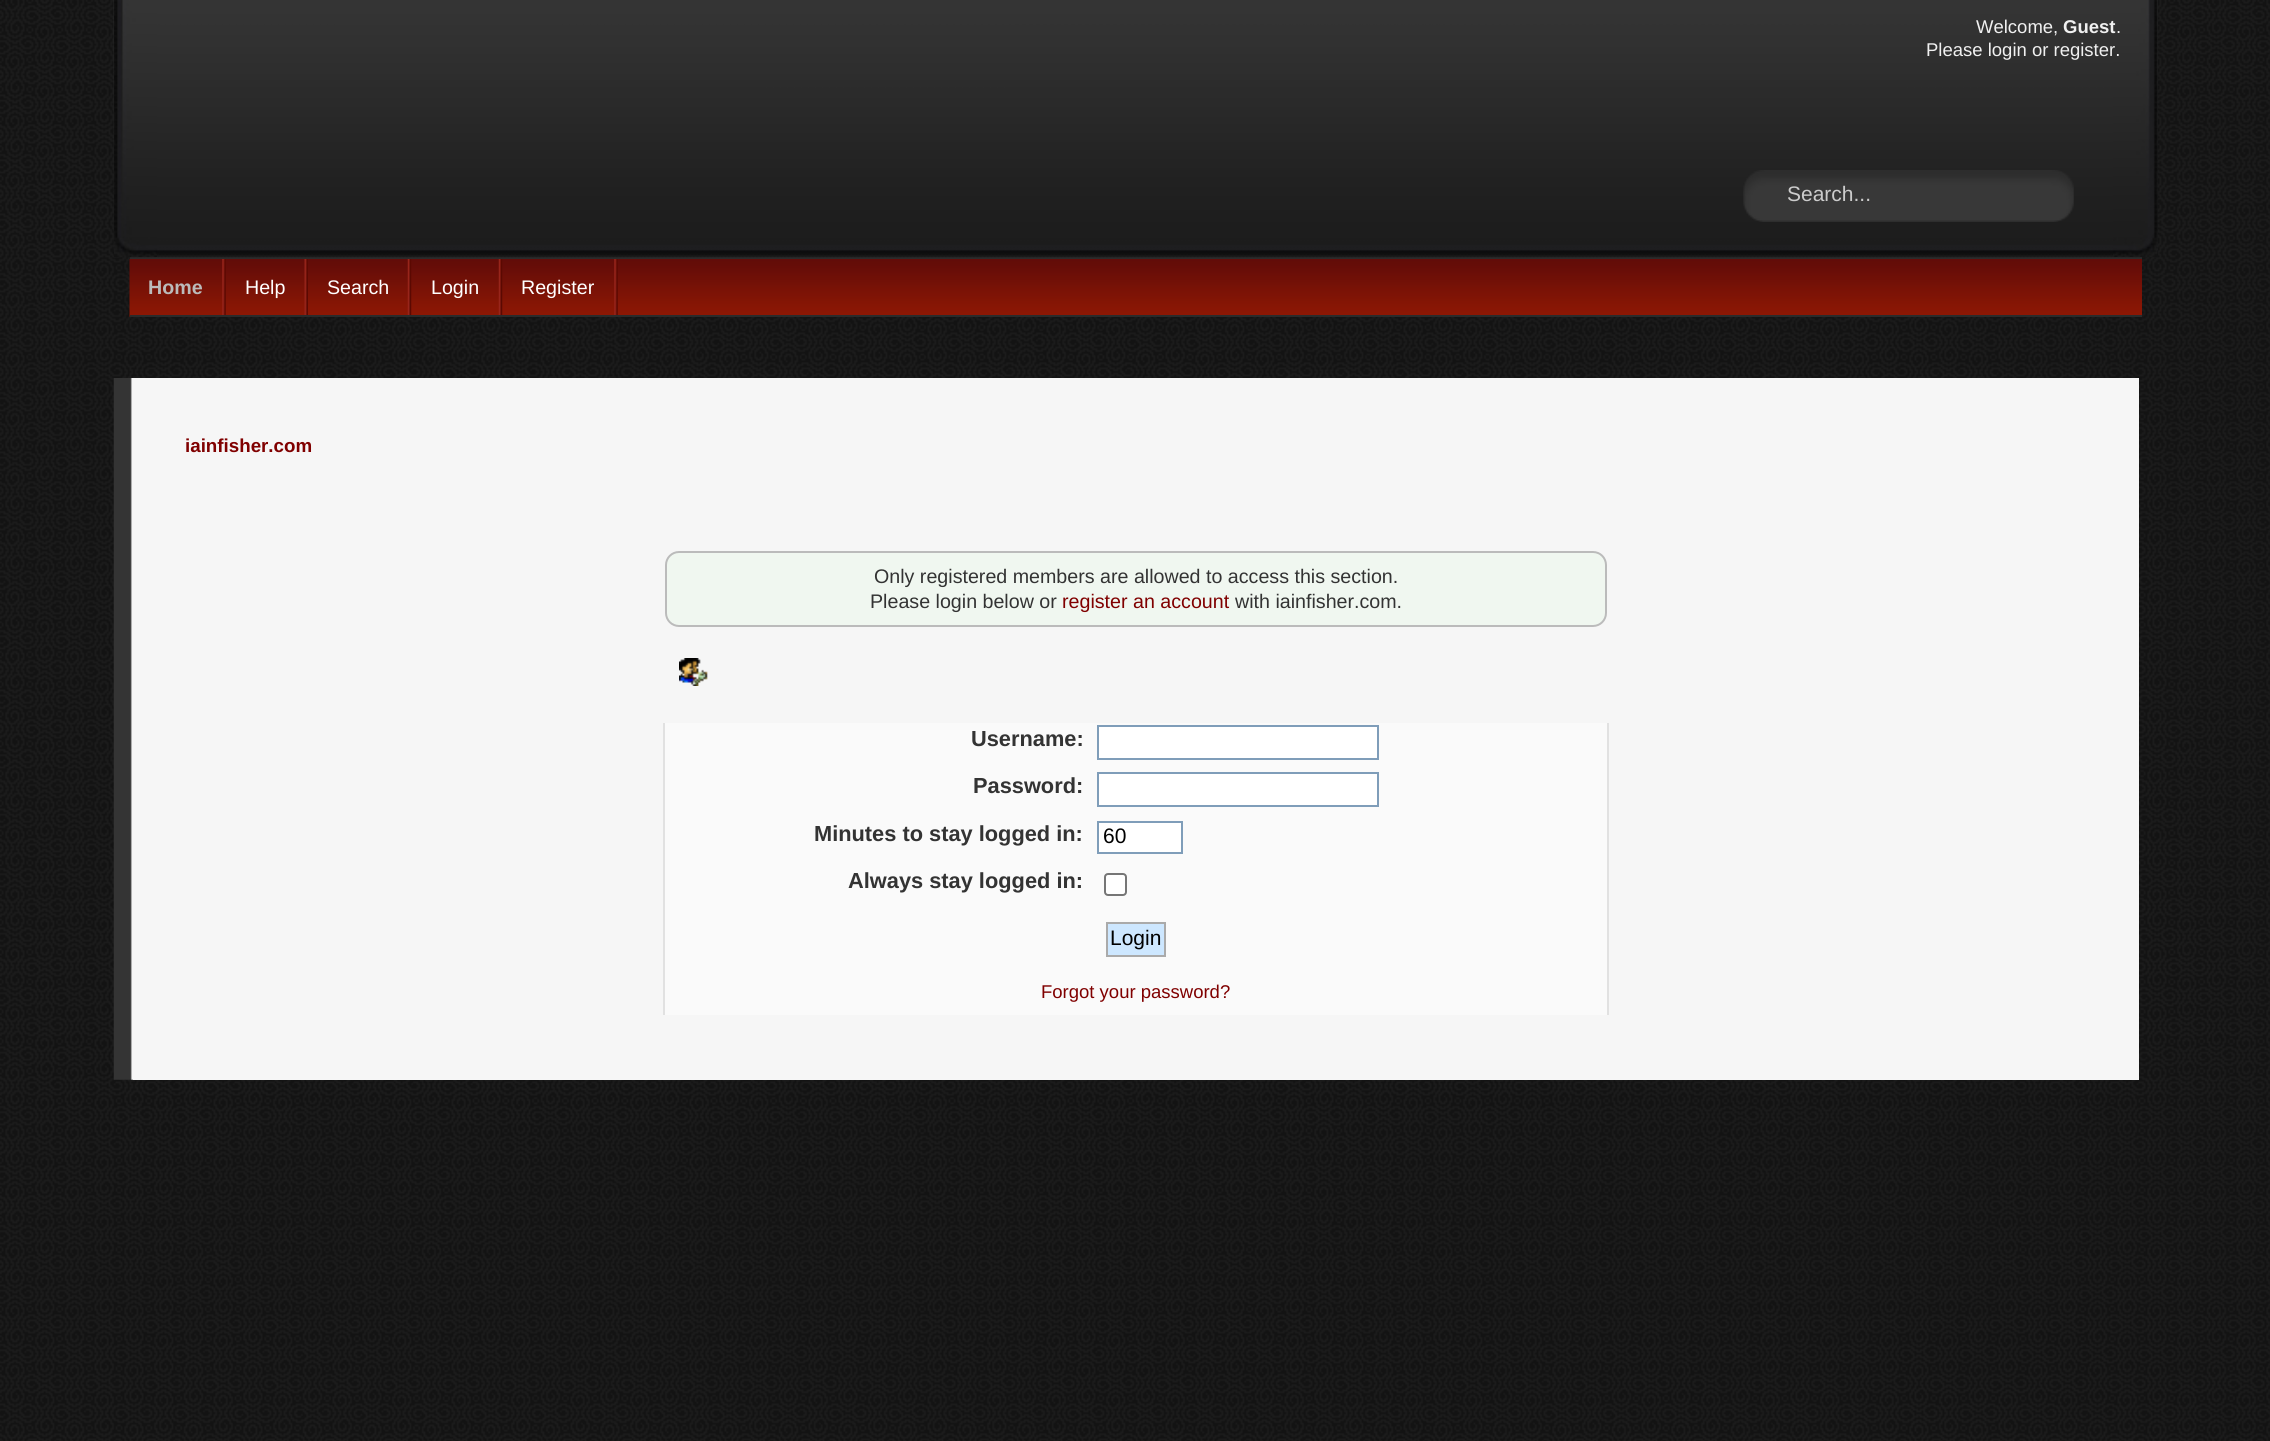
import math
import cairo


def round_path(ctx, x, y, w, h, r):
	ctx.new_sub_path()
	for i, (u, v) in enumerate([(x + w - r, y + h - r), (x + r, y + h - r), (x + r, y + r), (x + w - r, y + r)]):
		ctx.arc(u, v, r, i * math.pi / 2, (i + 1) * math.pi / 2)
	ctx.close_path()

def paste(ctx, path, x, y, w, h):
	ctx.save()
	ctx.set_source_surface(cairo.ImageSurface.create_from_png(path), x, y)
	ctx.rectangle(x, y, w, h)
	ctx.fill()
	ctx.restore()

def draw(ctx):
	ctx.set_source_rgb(1, 1, 1)
	ctx.paint()
	paste(ctx, 'media/1.png', 0, 0, 2270, 1441)
	ctx.set_source_rgb(0.169, 0.169, 0.169)
	ctx.rectangle(130, 257, 2012, 2)
	ctx.fill()
	paste(ctx, 'media/2.png', 113, 0, 2045, 258)
	paste(ctx, 'media/3.png', 114, 0, 43, 257)
	paste(ctx, 'media/4.png', 2113, 0, 45, 257)
	ctx.select_font_face('Liberation Sans')
	ctx.set_font_size(18.5)
	ctx.set_source_rgb(0.941, 0.941, 0.941)
	ctx.move_to(1976, 33)
	ctx.show_text('Welcome,')
	ctx.select_font_face('Liberation Sans', cairo.FONT_SLANT_NORMAL, cairo.FONT_WEIGHT_BOLD)
	ctx.move_to(2063, 33)
	ctx.show_text('Guest')
	ctx.select_font_face('Liberation Sans')
	ctx.move_to(2116, 33)
	ctx.show_text('.')
	ctx.move_to(1926, 56)
	ctx.show_text('Please login or register.')
	paste(ctx, 'media/5.png', 1743, 170, 331, 52)
	ctx.set_font_size(21)
	ctx.set_source_rgb(0.8, 0.8, 0.8)
	ctx.move_to(1787, 201)
	ctx.show_text('Search...')
	paste(ctx, 'media/6.png', 129, 259, 2013, 58)
	ctx.set_source_rgb(0.169, 0.169, 0.169)
	ctx.rectangle(130, 315, 2012, 2)
	ctx.fill()
	paste(ctx, 'media/7.png', 222, 259, 4, 56)
	ctx.select_font_face('Liberation Sans', cairo.FONT_SLANT_NORMAL, cairo.FONT_WEIGHT_BOLD)
	ctx.set_font_size(19.65)
	ctx.set_source_rgb(0.733, 0.733, 0.733)
	ctx.move_to(148, 294)
	ctx.show_text('Home')
	paste(ctx, 'media/8.png', 304, 259, 4, 56)
	ctx.select_font_face('Liberation Sans')
	ctx.set_source_rgb(1, 1, 1)
	ctx.move_to(245, 294)
	ctx.show_text('Help')
	paste(ctx, 'media/9.png', 407, 259, 5, 56)
	ctx.move_to(327, 294)
	ctx.show_text('Search')
	paste(ctx, 'media/9.png', 498, 259, 5, 56)
	ctx.move_to(431, 294)
	ctx.show_text('Login')
	paste(ctx, 'media/7.png', 614, 259, 4, 56)
	ctx.move_to(521, 294)
	ctx.show_text('Register')
	paste(ctx, 'media/10.png', 113, 378, 20, 702)
	ctx.set_source_rgb(0.961, 0.961, 0.961)
	ctx.rectangle(133, 378, 2006, 702)
	ctx.fill()
	ctx.select_font_face('Liberation Sans', cairo.FONT_SLANT_NORMAL, cairo.FONT_WEIGHT_BOLD)
	ctx.set_font_size(18.75)
	ctx.set_source_rgb(0.502, 0, 0)
	ctx.move_to(185, 452)
	ctx.show_text('iainfisher.com')
	ctx.set_source_rgb(0.941, 0.965, 0.941)
	round_path(ctx, 666, 552, 940, 74, 13)
	ctx.fill_preserve()
	ctx.set_source_rgb(0.733, 0.733, 0.733)
	ctx.stroke()
	ctx.select_font_face('Liberation Sans')
	ctx.set_font_size(19.65)
	ctx.set_source_rgb(0.2, 0.2, 0.2)
	ctx.move_to(874, 583)
	ctx.show_text('Only registered members are allowed to access this section.')
	ctx.move_to(870, 608)
	ctx.show_text('Please login below or')
	ctx.set_source_rgb(0.502, 0, 0)
	ctx.move_to(1062, 608)
	ctx.show_text('register an account')
	ctx.set_source_rgb(0.2, 0.2, 0.2)
	ctx.move_to(1235, 608)
	ctx.show_text('with iainfisher.com.')
	paste(ctx, 'media/11.png', 679, 658, 29, 28)
	ctx.set_source_rgb(0.98, 0.98, 0.98)
	ctx.rectangle(665, 723, 942, 292)
	ctx.fill()
	ctx.set_source_rgb(0.882, 0.882, 0.882)
	ctx.rectangle(1607, 723, 2, 292)
	ctx.rectangle(663, 723, 2, 292)
	ctx.fill()
	ctx.select_font_face('Liberation Sans', cairo.FONT_SLANT_NORMAL, cairo.FONT_WEIGHT_BOLD)
	ctx.set_font_size(21.8)
	ctx.set_source_rgb(0.2, 0.2, 0.2)
	ctx.move_to(971, 746)
	ctx.show_text('Username:')
	ctx.set_source_rgb(1, 1, 1)
	ctx.rectangle(1098, 726, 280, 33)
	ctx.fill_preserve()
	ctx.set_source_rgb(0.498, 0.616, 0.725)
	ctx.stroke()
	ctx.set_source_rgb(0.2, 0.2, 0.2)
	ctx.move_to(973, 793)
	ctx.show_text('Password:')
	ctx.set_source_rgb(1, 1, 1)
	ctx.rectangle(1098, 773, 280, 33)
	ctx.fill_preserve()
	ctx.set_source_rgb(0.498, 0.616, 0.725)
	ctx.stroke()
	ctx.set_source_rgb(0.2, 0.2, 0.2)
	ctx.move_to(814, 841)
	ctx.show_text('Minutes to stay logged in:')
	ctx.set_source_rgb(1, 1, 1)
	ctx.rectangle(1098, 822, 84, 31)
	ctx.fill_preserve()
	ctx.set_source_rgb(0.498, 0.616, 0.725)
	ctx.stroke()
	ctx.select_font_face('Liberation Sans')
	ctx.set_font_size(21)
	ctx.set_source_rgb(0, 0, 0)
	ctx.move_to(1103, 843)
	ctx.show_text('60')
	ctx.select_font_face('Liberation Sans', cairo.FONT_SLANT_NORMAL, cairo.FONT_WEIGHT_BOLD)
	ctx.set_font_size(21.8)
	ctx.set_source_rgb(0.2, 0.2, 0.2)
	ctx.move_to(848, 888)
	ctx.show_text('Always stay logged in:')
	ctx.set_source_rgb(1, 1, 1)
	round_path(ctx, 1105, 874, 21, 21, 3)
	ctx.fill_preserve()
	ctx.set_source_rgb(0.463, 0.463, 0.463)
	ctx.stroke()
	ctx.set_source_rgb(0.804, 0.906, 1)
	ctx.rectangle(1107, 923, 58, 33)
	ctx.fill_preserve()
	ctx.set_source_rgb(0.667, 0.667, 0.667)
	ctx.stroke()
	ctx.select_font_face('Liberation Sans')
	ctx.set_font_size(21)
	ctx.set_source_rgb(0, 0, 0)
	ctx.move_to(1110, 945)
	ctx.show_text('Login')
	ctx.set_font_size(18.5)
	ctx.set_source_rgb(0.502, 0, 0)
	ctx.move_to(1041, 998)
	ctx.show_text('Forgot your password?')


surface = cairo.ImageSurface(cairo.FORMAT_RGB24, 2270, 1441)
ctx = cairo.Context(surface)
options = cairo.FontOptions()
options.set_hint_metrics(cairo.HINT_METRICS_OFF)
options.set_hint_style(cairo.HINT_STYLE_NONE)
ctx.set_font_options(options)
ctx.set_miter_limit(4)
draw(ctx)
surface.write_to_png('image.png')
